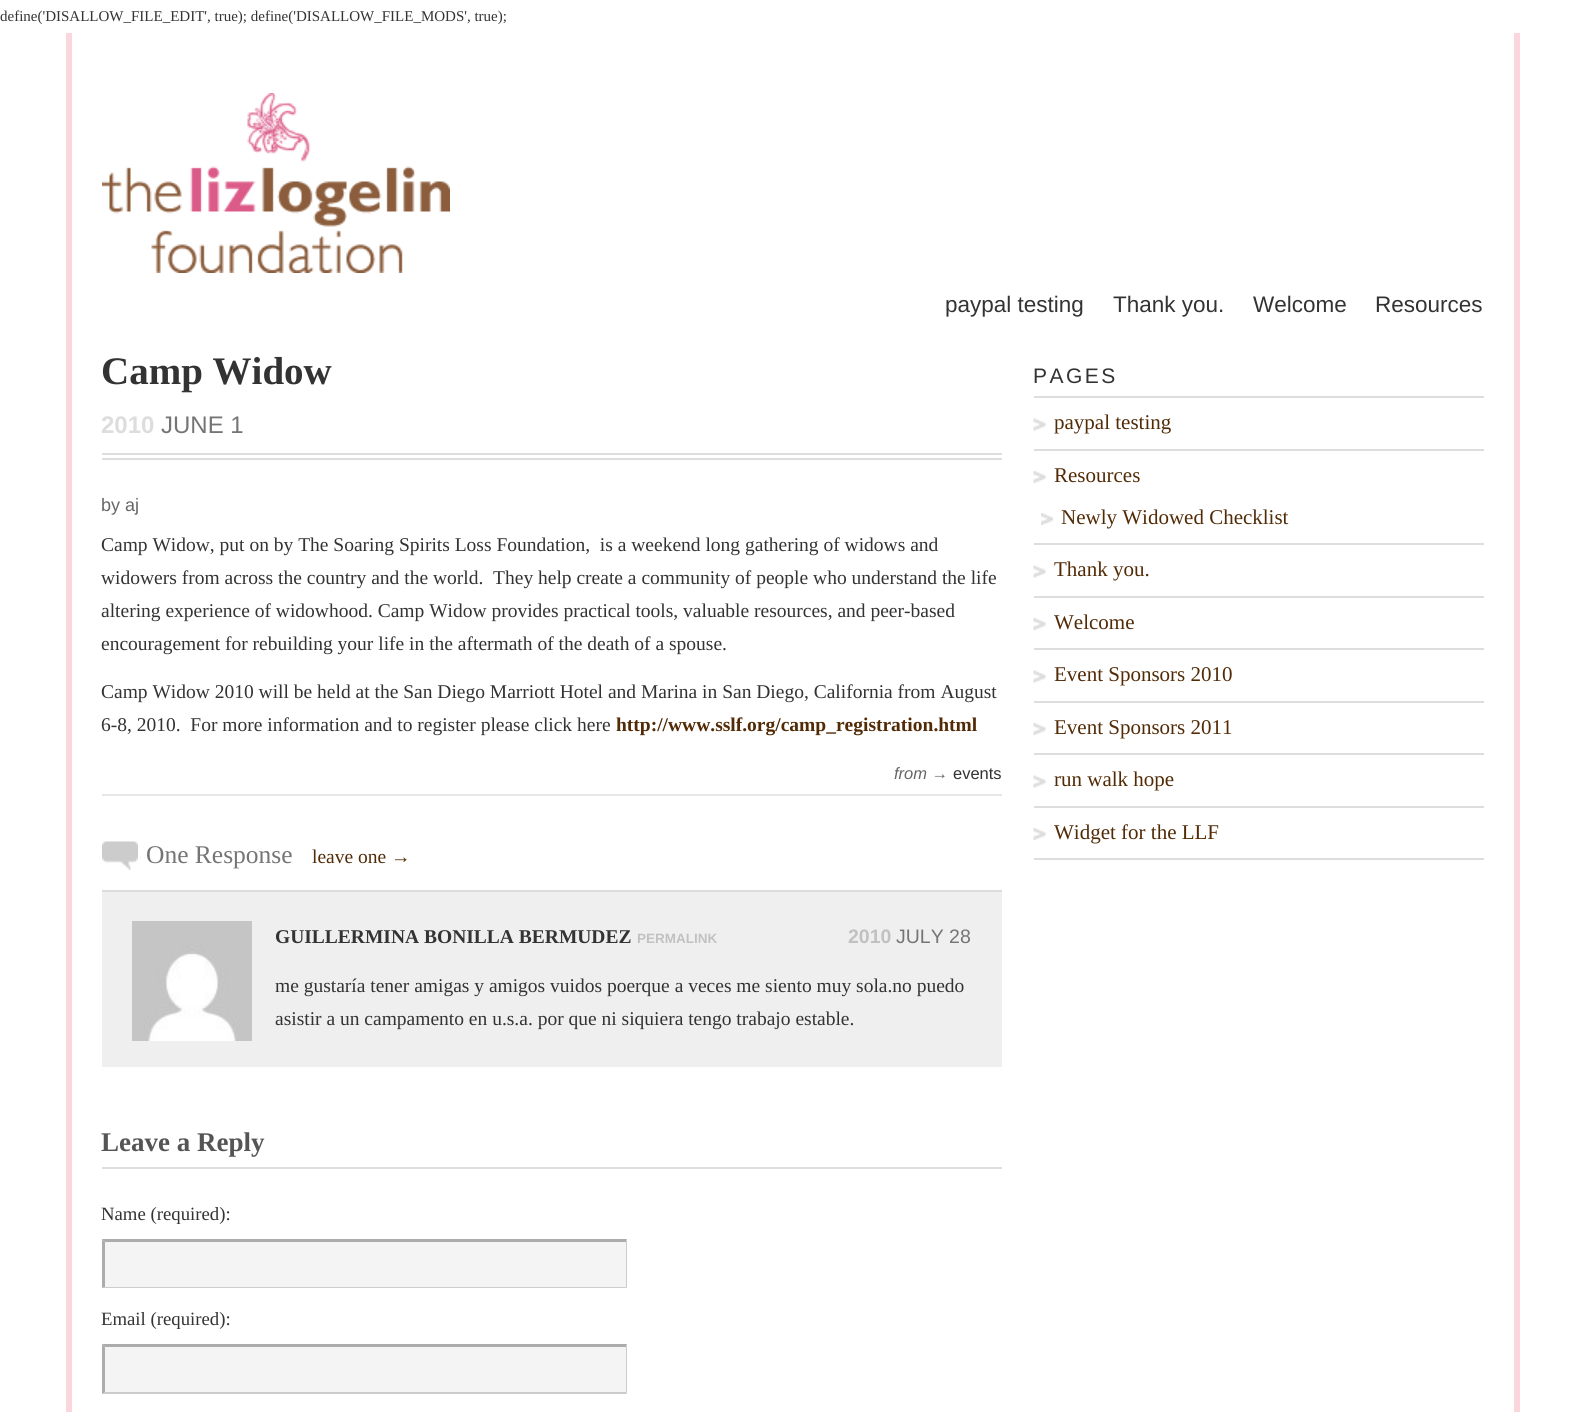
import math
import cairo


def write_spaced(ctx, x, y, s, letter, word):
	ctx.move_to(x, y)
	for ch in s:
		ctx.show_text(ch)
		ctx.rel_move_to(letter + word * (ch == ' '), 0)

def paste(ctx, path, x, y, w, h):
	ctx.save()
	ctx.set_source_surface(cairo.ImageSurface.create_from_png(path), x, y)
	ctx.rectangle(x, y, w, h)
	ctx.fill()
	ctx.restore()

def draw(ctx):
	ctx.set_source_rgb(1, 1, 1)
	ctx.paint()
	ctx.select_font_face('Liberation Serif')
	ctx.set_font_size(15)
	ctx.set_source_rgb(0.2, 0.2, 0.2)
	ctx.move_to(0, 21)
	ctx.show_text('define(\'DISALLOW_FILE_EDIT\', true); define(\'DISALLOW_FILE_MODS\', true);')
	ctx.set_source_rgb(0.984, 0.839, 0.867)
	ctx.rectangle(1514, 33, 6, 1379)
	ctx.fill()
	ctx.rectangle(66, 33, 6, 1379)
	ctx.fill()
	paste(ctx, 'media/1.png', 102, 93, 348, 180)
	ctx.select_font_face('Liberation Sans')
	ctx.set_font_size(22.5)
	ctx.set_source_rgb(0.2, 0.2, 0.2)
	for x, y, s in [
		(945, 312, 'paypal testing'),
		(1113, 312, 'Thank you.'),
		(1253, 312, 'Welcome'),
		(1375, 312, 'Resources'),
	]:
		ctx.move_to(x, y)
		ctx.show_text(s)
	ctx.set_source_rgb(0.867, 0.867, 0.867)
	ctx.rectangle(102, 453, 900, 2)
	ctx.fill()
	ctx.rectangle(102, 458, 900, 2)
	ctx.fill()
	ctx.select_font_face('Liberation Serif', cairo.FONT_SLANT_NORMAL, cairo.FONT_WEIGHT_BOLD)
	ctx.set_font_size(39)
	ctx.set_source_rgb(0.2, 0.2, 0.2)
	ctx.move_to(101, 384)
	ctx.show_text('Camp Widow')
	ctx.select_font_face('Liberation Sans', cairo.FONT_SLANT_NORMAL, cairo.FONT_WEIGHT_BOLD)
	ctx.set_font_size(24)
	ctx.set_source_rgb(0.867, 0.867, 0.867)
	ctx.move_to(101, 433)
	ctx.show_text('2010')
	ctx.select_font_face('Liberation Sans')
	ctx.set_source_rgb(0.459, 0.459, 0.459)
	ctx.move_to(161, 433)
	ctx.show_text('JUNE 1')
	ctx.set_font_size(18)
	ctx.set_source_rgb(0.4, 0.4, 0.4)
	ctx.move_to(101, 511)
	ctx.show_text('by aj')
	ctx.select_font_face('Liberation Serif')
	ctx.set_font_size(19.5)
	ctx.set_source_rgb(0.2, 0.2, 0.2)
	for x, y, s in [
		(101, 551, 'Camp Widow, put on by The Soaring Spirits Loss Foundation,  is a weekend long gathering of widows and'),
		(101, 584, 'widowers from across the country and the world.  They help create a community of people who understand the life'),
		(101, 617, 'altering experience of widowhood. Camp Widow provides practical tools, valuable resources, and peer-based'),
		(101, 650, 'encouragement for rebuilding your life in the aftermath of the death of a spouse.'),
		(101, 698, 'Camp Widow 2010 will be held at the San Diego Marriott Hotel and Marina in San Diego, California from August'),
		(101, 731, '6-8, 2010.  For more information and to register please click here'),
	]:
		ctx.move_to(x, y)
		ctx.show_text(s)
	ctx.select_font_face('Liberation Serif', cairo.FONT_SLANT_NORMAL, cairo.FONT_WEIGHT_BOLD)
	ctx.set_source_rgb(0.322, 0.169, 0.024)
	ctx.move_to(616, 731)
	ctx.show_text('http://www.sslf.org/camp_registration.html')
	ctx.set_source_rgb(0.91, 0.91, 0.91)
	ctx.rectangle(102, 794, 900, 2)
	ctx.fill()
	ctx.select_font_face('Liberation Sans', cairo.FONT_SLANT_ITALIC)
	ctx.set_font_size(16.5)
	ctx.set_source_rgb(0.4, 0.4, 0.4)
	ctx.move_to(894, 779)
	ctx.show_text('from →')
	ctx.select_font_face('Liberation Sans')
	ctx.set_source_rgb(0.2, 0.2, 0.2)
	ctx.move_to(953, 779)
	ctx.show_text('events')
	paste(ctx, 'media/2.png', 102, 841, 36, 29)
	ctx.select_font_face('Liberation Serif')
	ctx.set_font_size(25.5)
	ctx.set_source_rgb(0.459, 0.459, 0.459)
	ctx.move_to(146, 863)
	ctx.show_text('One Response')
	ctx.set_font_size(19.5)
	ctx.set_source_rgb(0.322, 0.169, 0.024)
	ctx.move_to(312, 863)
	ctx.show_text('leave one →')
	ctx.set_source_rgb(0.937, 0.937, 0.937)
	ctx.rectangle(102, 892, 900, 175)
	ctx.fill()
	ctx.set_source_rgb(0.867, 0.867, 0.867)
	ctx.rectangle(102, 890, 900, 2)
	ctx.fill()
	paste(ctx, 'media/3.png', 132, 921, 120, 120)
	ctx.select_font_face('Liberation Serif', cairo.FONT_SLANT_NORMAL, cairo.FONT_WEIGHT_BOLD)
	ctx.set_source_rgb(0.2, 0.2, 0.2)
	ctx.move_to(275, 943)
	ctx.show_text('GUILLERMINA BONILLA BERMUDEZ')
	ctx.select_font_face('Liberation Sans', cairo.FONT_SLANT_NORMAL, cairo.FONT_WEIGHT_BOLD)
	ctx.set_font_size(13.5)
	ctx.set_source_rgb(0.757, 0.757, 0.757)
	ctx.move_to(637, 943)
	ctx.show_text('PERMALINK')
	ctx.set_font_size(19.5)
	ctx.move_to(848, 943)
	ctx.show_text('2010')
	ctx.select_font_face('Liberation Sans')
	ctx.set_source_rgb(0.459, 0.459, 0.459)
	ctx.move_to(896, 943)
	ctx.show_text('JULY 28')
	ctx.select_font_face('Liberation Serif')
	ctx.set_source_rgb(0.2, 0.2, 0.2)
	ctx.move_to(275, 992)
	ctx.show_text('me gustaría tener amigas y amigos vuidos poerque a veces me siento muy sola.no puedo')
	ctx.move_to(275, 1025)
	ctx.show_text('asistir a un campamento en u.s.a. por que ni siquiera tengo trabajo estable.')
	ctx.set_source_rgb(0.867, 0.867, 0.867)
	ctx.rectangle(102, 1167, 900, 2)
	ctx.fill()
	ctx.select_font_face('Liberation Serif', cairo.FONT_SLANT_NORMAL, cairo.FONT_WEIGHT_BOLD)
	ctx.set_font_size(27)
	ctx.set_source_rgb(0.333, 0.333, 0.333)
	ctx.move_to(101, 1151)
	ctx.show_text('Leave a Reply')
	ctx.select_font_face('Liberation Serif')
	ctx.set_font_size(18.75)
	ctx.set_source_rgb(0.2, 0.2, 0.2)
	ctx.move_to(101, 1220)
	ctx.show_text('Name (required):')
	ctx.set_source_rgb(0.957, 0.957, 0.957)
	ctx.rectangle(105, 1242, 521, 45)
	ctx.fill()
	ctx.set_source_rgb(0.675, 0.675, 0.675)
	ctx.new_path()
	ctx.move_to(102, 1239)
	ctx.line_to(627, 1239)
	ctx.line_to(626, 1242)
	ctx.line_to(105, 1242)
	ctx.close_path()
	ctx.fill()
	ctx.set_source_rgb(0.8, 0.8, 0.8)
	ctx.new_path()
	ctx.move_to(627, 1239)
	ctx.line_to(627, 1288)
	ctx.line_to(626, 1287)
	ctx.line_to(626, 1242)
	ctx.close_path()
	ctx.fill()
	ctx.new_path()
	ctx.move_to(627, 1288)
	ctx.line_to(102, 1288)
	ctx.line_to(105, 1287)
	ctx.line_to(626, 1287)
	ctx.close_path()
	ctx.fill()
	ctx.set_source_rgb(0.675, 0.675, 0.675)
	ctx.new_path()
	ctx.move_to(102, 1288)
	ctx.line_to(102, 1239)
	ctx.line_to(105, 1242)
	ctx.line_to(105, 1287)
	ctx.close_path()
	ctx.fill()
	ctx.set_source_rgb(0.2, 0.2, 0.2)
	ctx.move_to(101, 1325)
	ctx.show_text('Email (required):')
	ctx.set_source_rgb(0.957, 0.957, 0.957)
	ctx.rectangle(105, 1347, 521, 45)
	ctx.fill()
	ctx.set_source_rgb(0.675, 0.675, 0.675)
	ctx.new_path()
	ctx.move_to(102, 1344)
	ctx.line_to(627, 1344)
	ctx.line_to(626, 1347)
	ctx.line_to(105, 1347)
	ctx.close_path()
	ctx.fill()
	ctx.set_source_rgb(0.8, 0.8, 0.8)
	ctx.new_path()
	ctx.move_to(627, 1344)
	ctx.line_to(627, 1394)
	ctx.line_to(626, 1392)
	ctx.line_to(626, 1347)
	ctx.close_path()
	ctx.fill()
	ctx.new_path()
	ctx.move_to(627, 1394)
	ctx.line_to(102, 1394)
	ctx.line_to(105, 1392)
	ctx.line_to(626, 1392)
	ctx.close_path()
	ctx.fill()
	ctx.set_source_rgb(0.675, 0.675, 0.675)
	ctx.new_path()
	ctx.move_to(102, 1394)
	ctx.line_to(102, 1344)
	ctx.line_to(105, 1347)
	ctx.line_to(105, 1392)
	ctx.close_path()
	ctx.fill()
	ctx.set_source_rgb(0.867, 0.867, 0.867)
	ctx.rectangle(1034, 396, 450, 2)
	ctx.fill()
	ctx.select_font_face('Liberation Sans')
	ctx.set_font_size(21)
	ctx.set_source_rgb(0.2, 0.2, 0.2)
	write_spaced(ctx, 1033, 383, 'PAGES', 2.5, 0)
	ctx.set_source_rgb(0.867, 0.867, 0.867)
	ctx.rectangle(1034, 449, 450, 2)
	ctx.fill()
	paste(ctx, 'media/4.png', 1033, 418, 13, 13)
	ctx.select_font_face('Liberation Serif')
	ctx.set_source_rgb(0.322, 0.169, 0.024)
	ctx.move_to(1054, 429)
	ctx.show_text('paypal testing')
	ctx.set_source_rgb(0.867, 0.867, 0.867)
	ctx.rectangle(1034, 543, 450, 2)
	ctx.fill()
	paste(ctx, 'media/5.png', 1033, 471, 13, 12)
	ctx.set_source_rgb(0.322, 0.169, 0.024)
	ctx.move_to(1054, 482)
	ctx.show_text('Resources')
	paste(ctx, 'media/6.png', 1041, 513, 12, 12)
	ctx.move_to(1061, 524)
	ctx.show_text('Newly Widowed Checklist')
	ctx.set_source_rgb(0.867, 0.867, 0.867)
	ctx.rectangle(1034, 596, 450, 2)
	ctx.fill()
	paste(ctx, 'media/4.png', 1033, 565, 13, 13)
	ctx.set_source_rgb(0.322, 0.169, 0.024)
	ctx.move_to(1054, 576)
	ctx.show_text('Thank you.')
	ctx.set_source_rgb(0.867, 0.867, 0.867)
	ctx.rectangle(1034, 648, 450, 2)
	ctx.fill()
	paste(ctx, 'media/5.png', 1033, 618, 13, 12)
	ctx.set_source_rgb(0.322, 0.169, 0.024)
	ctx.move_to(1054, 629)
	ctx.show_text('Welcome')
	ctx.set_source_rgb(0.867, 0.867, 0.867)
	ctx.rectangle(1034, 701, 450, 2)
	ctx.fill()
	paste(ctx, 'media/4.png', 1033, 670, 13, 13)
	ctx.set_source_rgb(0.322, 0.169, 0.024)
	ctx.move_to(1054, 681)
	ctx.show_text('Event Sponsors 2010')
	ctx.set_source_rgb(0.867, 0.867, 0.867)
	ctx.rectangle(1034, 753, 450, 2)
	ctx.fill()
	paste(ctx, 'media/5.png', 1033, 723, 13, 12)
	ctx.set_source_rgb(0.322, 0.169, 0.024)
	ctx.move_to(1054, 734)
	ctx.show_text('Event Sponsors 2011')
	ctx.set_source_rgb(0.867, 0.867, 0.867)
	ctx.rectangle(1034, 806, 450, 2)
	ctx.fill()
	paste(ctx, 'media/4.png', 1033, 775, 13, 13)
	ctx.set_source_rgb(0.322, 0.169, 0.024)
	ctx.move_to(1054, 786)
	ctx.show_text('run walk hope')
	ctx.set_source_rgb(0.867, 0.867, 0.867)
	ctx.rectangle(1034, 858, 450, 2)
	ctx.fill()
	paste(ctx, 'media/5.png', 1033, 828, 13, 12)
	ctx.set_source_rgb(0.322, 0.169, 0.024)
	ctx.move_to(1054, 839)
	ctx.show_text('Widget for the LLF')


surface = cairo.ImageSurface(cairo.FORMAT_RGB24, 1583, 1412)
ctx = cairo.Context(surface)
options = cairo.FontOptions()
options.set_hint_metrics(cairo.HINT_METRICS_OFF)
options.set_hint_style(cairo.HINT_STYLE_NONE)
ctx.set_font_options(options)
ctx.set_miter_limit(4)
draw(ctx)
surface.write_to_png('image.png')
